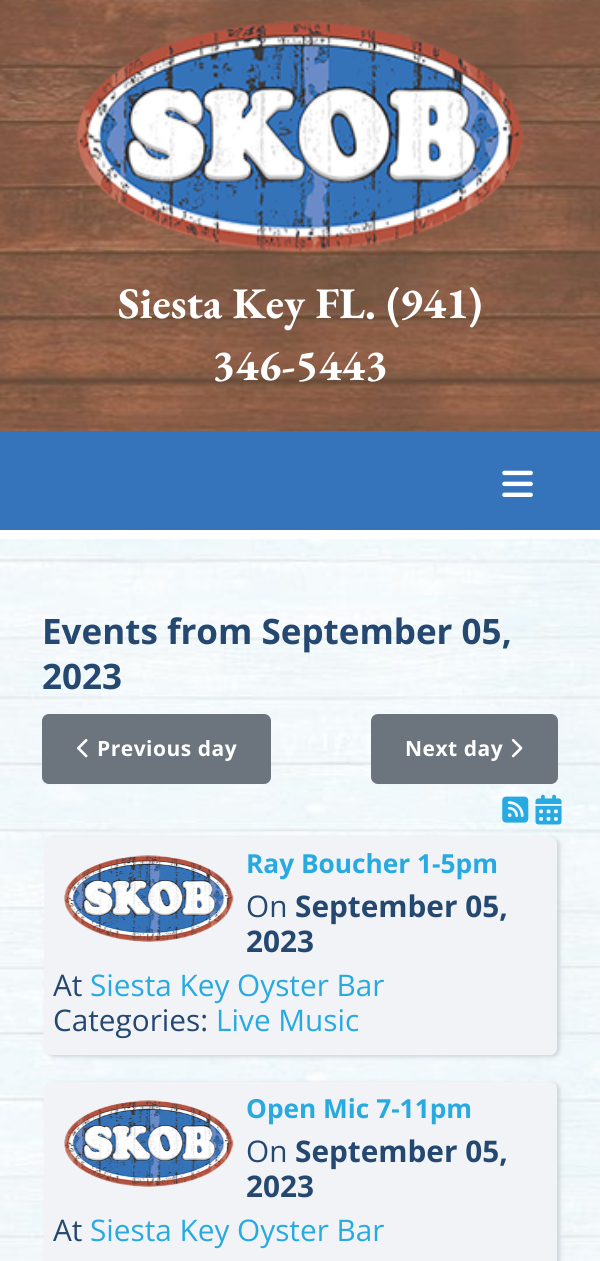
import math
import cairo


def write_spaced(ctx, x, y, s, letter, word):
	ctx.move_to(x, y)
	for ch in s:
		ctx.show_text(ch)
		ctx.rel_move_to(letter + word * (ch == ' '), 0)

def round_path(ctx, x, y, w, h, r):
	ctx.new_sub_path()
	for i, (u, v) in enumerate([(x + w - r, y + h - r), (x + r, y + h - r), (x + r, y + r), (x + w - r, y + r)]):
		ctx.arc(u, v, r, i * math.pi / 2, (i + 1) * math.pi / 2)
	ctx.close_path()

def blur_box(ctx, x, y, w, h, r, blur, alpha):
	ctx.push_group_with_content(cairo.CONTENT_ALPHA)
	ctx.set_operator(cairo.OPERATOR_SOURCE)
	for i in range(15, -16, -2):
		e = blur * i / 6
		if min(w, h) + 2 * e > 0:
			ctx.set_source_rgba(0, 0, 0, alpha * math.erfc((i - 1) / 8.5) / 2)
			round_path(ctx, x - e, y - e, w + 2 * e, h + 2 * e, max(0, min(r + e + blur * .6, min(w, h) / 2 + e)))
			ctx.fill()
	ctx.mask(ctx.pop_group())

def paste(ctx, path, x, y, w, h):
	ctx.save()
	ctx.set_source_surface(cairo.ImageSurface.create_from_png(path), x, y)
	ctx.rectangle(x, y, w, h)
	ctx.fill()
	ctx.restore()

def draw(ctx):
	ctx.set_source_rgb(1, 1, 1)
	ctx.paint()
	paste(ctx, 'media/1.png', 0, 539, 600, 722)
	paste(ctx, 'media/2.png', 0, 0, 600, 431)
	paste(ctx, 'media/3.png', 76, 20, 448, 234)
	ctx.select_font_face('EB Garamond', cairo.FONT_SLANT_NORMAL, cairo.FONT_WEIGHT_BOLD)
	ctx.set_font_size(43.75)
	ctx.set_source_rgb(1, 1, 1)
	ctx.move_to(118, 318)
	ctx.show_text('Siesta Key FL. (941)')
	ctx.move_to(212, 380)
	ctx.show_text('346-5443')
	ctx.set_source_rgb(0.208, 0.455, 0.733)
	ctx.rectangle(0, 431, 600, 99)
	ctx.fill()
	paste(ctx, 'media/4.png', 502, 470, 31, 27)
	ctx.select_font_face('Open Sans', cairo.FONT_SLANT_NORMAL, cairo.FONT_WEIGHT_BOLD)
	ctx.set_font_size(35)
	ctx.set_source_rgb(0.141, 0.282, 0.439)
	ctx.move_to(42, 644)
	ctx.show_text('Events from September 05,')
	ctx.move_to(42, 689)
	ctx.show_text('2023')
	ctx.set_source_rgb(0.424, 0.459, 0.49)
	round_path(ctx, 42, 714, 229, 70, 7)
	ctx.fill()
	paste(ctx, 'media/5.png', 77, 739, 11, 19)
	ctx.set_font_size(21)
	ctx.set_source_rgb(1, 1, 1)
	write_spaced(ctx, 97, 756, 'Previous day', 0.5, 0)
	ctx.set_source_rgb(0.424, 0.459, 0.49)
	round_path(ctx, 371, 714, 187, 70, 7)
	ctx.fill()
	ctx.set_source_rgb(1, 1, 1)
	write_spaced(ctx, 405, 756, 'Next day', 0.5, 0)
	paste(ctx, 'media/6.png', 511, 739, 12, 19)
	paste(ctx, 'media/7.png', 502, 796, 27, 27)
	paste(ctx, 'media/8.png', 535, 794, 27, 31)
	ctx.set_source_rgb(0.796, 0.824, 0.851)
	blur_box(ctx, 47, 838, 513, 219, 7, 2, 0.9)
	ctx.set_source_rgb(0.949, 0.953, 0.965)
	round_path(ctx, 44, 837, 513, 218, 7)
	ctx.fill()
	ctx.set_font_size(26.25)
	ctx.set_source_rgb(0.153, 0.667, 0.882)
	ctx.move_to(246, 873)
	ctx.show_text('Ray Boucher 1-5pm')
	ctx.select_font_face('Open Sans')
	ctx.set_font_size(29.75)
	ctx.set_source_rgb(0.141, 0.282, 0.439)
	ctx.move_to(246, 917)
	ctx.show_text('On')
	ctx.select_font_face('Open Sans', cairo.FONT_SLANT_NORMAL, cairo.FONT_WEIGHT_BOLD)
	ctx.move_to(295, 917)
	ctx.show_text('September 05,')
	ctx.move_to(246, 952)
	ctx.show_text('2023')
	ctx.select_font_face('Open Sans')
	ctx.move_to(53, 996)
	ctx.show_text('At')
	ctx.set_source_rgb(0.153, 0.667, 0.882)
	ctx.move_to(90, 996)
	ctx.show_text('Siesta Key Oyster Bar')
	ctx.set_source_rgb(0.141, 0.282, 0.439)
	ctx.move_to(53, 1031)
	ctx.show_text('Categories:')
	ctx.set_source_rgb(0.153, 0.667, 0.882)
	ctx.move_to(216, 1031)
	ctx.show_text('Live Music')
	paste(ctx, 'media/9.png', 64, 855, 170, 87)
	ctx.set_source_rgb(0.796, 0.824, 0.851)
	blur_box(ctx, 47, 1083, 513, 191, 7, 2, 0.9)
	ctx.set_source_rgb(0.949, 0.953, 0.965)
	round_path(ctx, 44, 1082, 513, 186, 7)
	ctx.fill()
	ctx.select_font_face('Open Sans', cairo.FONT_SLANT_NORMAL, cairo.FONT_WEIGHT_BOLD)
	ctx.set_font_size(26.25)
	ctx.set_source_rgb(0.153, 0.667, 0.882)
	ctx.move_to(246, 1118)
	ctx.show_text('Open Mic 7-11pm')
	ctx.select_font_face('Open Sans')
	ctx.set_font_size(29.75)
	ctx.set_source_rgb(0.141, 0.282, 0.439)
	ctx.move_to(246, 1162)
	ctx.show_text('On')
	ctx.select_font_face('Open Sans', cairo.FONT_SLANT_NORMAL, cairo.FONT_WEIGHT_BOLD)
	ctx.move_to(295, 1162)
	ctx.show_text('September 05,')
	ctx.move_to(246, 1197)
	ctx.show_text('2023')
	ctx.select_font_face('Open Sans')
	ctx.move_to(53, 1241)
	ctx.show_text('At')
	ctx.set_source_rgb(0.153, 0.667, 0.882)
	ctx.move_to(90, 1241)
	ctx.show_text('Siesta Key Oyster Bar')
	paste(ctx, 'media/9.png', 64, 1100, 170, 87)


surface = cairo.ImageSurface(cairo.FORMAT_RGB24, 600, 1261)
ctx = cairo.Context(surface)
options = cairo.FontOptions()
options.set_hint_metrics(cairo.HINT_METRICS_OFF)
options.set_hint_style(cairo.HINT_STYLE_NONE)
ctx.set_font_options(options)
ctx.set_miter_limit(4)
draw(ctx)
surface.write_to_png('image.png')
